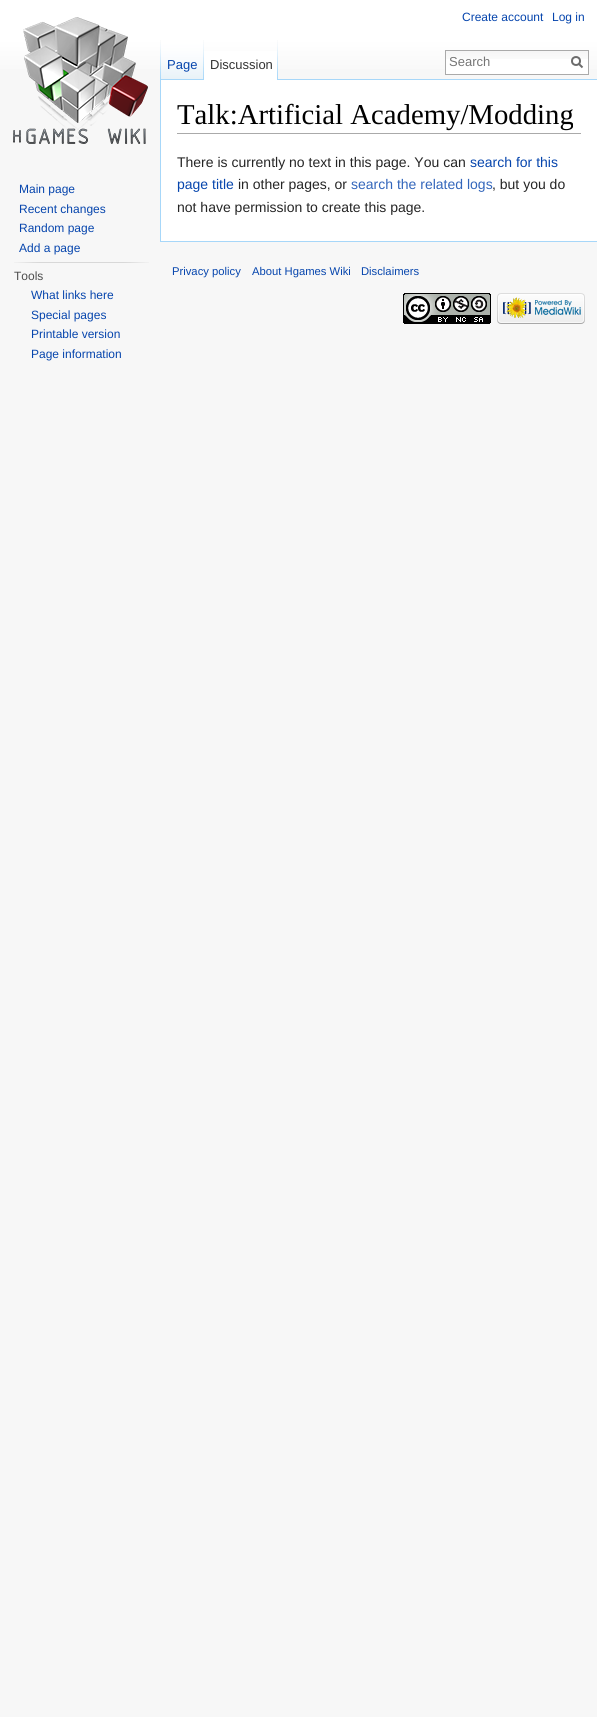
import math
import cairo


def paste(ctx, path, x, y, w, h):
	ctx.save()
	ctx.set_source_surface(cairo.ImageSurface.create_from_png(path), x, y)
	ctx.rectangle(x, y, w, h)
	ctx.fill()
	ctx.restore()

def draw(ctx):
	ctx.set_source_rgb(0.965, 0.965, 0.965)
	ctx.paint()
	gradient = cairo.LinearGradient(299, 0, 299, 80)
	gradient.add_color_stop_rgba(0.5, 1, 1, 1, 1)
	gradient.add_color_stop_rgba(1, 0.965, 0.965, 0.965, 1)
	ctx.set_source(gradient)
	ctx.rectangle(0, 0, 597, 69)
	ctx.fill()
	ctx.select_font_face('Liberation Sans')
	ctx.set_font_size(12)
	ctx.set_source_rgb(0.024, 0.271, 0.678)
	ctx.move_to(462, 21)
	ctx.show_text('Create account')
	ctx.move_to(552, 21)
	ctx.show_text('Log in')
	paste(ctx, 'media/1.png', 160, 40, 1, 39)
	paste(ctx, 'media/2.png', 161, 40, 43, 40)
	paste(ctx, 'media/3.png', 203, 40, 1, 39)
	ctx.set_font_size(13)
	ctx.move_to(167, 69)
	ctx.show_text('Page')
	ctx.set_source_rgb(1, 1, 1)
	ctx.rectangle(204, 51, 73, 29)
	ctx.fill()
	paste(ctx, 'media/4.png', 277, 40, 1, 40)
	ctx.set_source_rgb(0.2, 0.2, 0.2)
	ctx.move_to(210, 69)
	ctx.show_text('Discussion')
	ctx.set_source_rgb(1, 1, 1)
	ctx.rectangle(446, 59, 142, 15)
	ctx.fill()
	paste(ctx, 'media/5.png', 446, 51, 142, 8)
	ctx.rectangle(445.5, 50.5, 143, 24)
	ctx.set_source_rgb(0.667, 0.667, 0.667)
	ctx.set_line_width(1)
	ctx.stroke()
	ctx.set_source_rgb(0.459, 0.459, 0.459)
	ctx.move_to(449, 66)
	ctx.show_text('Search')
	ctx.new_path()
	ctx.move_to(582.5, 67.5)
	ctx.line_to(578.5, 63.5)
	ctx.set_source_rgb(0.424, 0.424, 0.424)
	ctx.set_line_width(2)
	ctx.stroke()
	ctx.arc(576, 61, 4, 0, 2 * math.pi)
	ctx.stroke()
	paste(ctx, 'media/6.png', 13, 17, 135, 127)
	ctx.set_font_size(12)
	ctx.set_source_rgb(0.024, 0.271, 0.678)
	for x, y, s in [
		(19, 193, 'Main page'),
		(19, 213, 'Recent changes'),
		(19, 232, 'Random page'),
		(19, 252, 'Add a page'),
	]:
		ctx.move_to(x, y)
		ctx.show_text(s)
	paste(ctx, 'media/7.png', 14, 262, 135, 1)
	ctx.set_source_rgb(0.302, 0.302, 0.302)
	ctx.move_to(14, 280)
	ctx.show_text('Tools')
	ctx.set_source_rgb(0.024, 0.271, 0.678)
	for x, y, s in [
		(31, 299, 'What links here'),
		(31, 319, 'Special pages'),
		(31, 338, 'Printable version'),
		(31, 358, 'Page information'),
	]:
		ctx.move_to(x, y)
		ctx.show_text(s)
	ctx.set_source_rgb(1, 1, 1)
	ctx.rectangle(161, 80, 436, 161)
	ctx.fill()
	ctx.set_source_rgb(0.655, 0.843, 0.976)
	ctx.rectangle(278, 79, 319, 1)
	ctx.rectangle(160, 241, 437, 1)
	ctx.rectangle(160, 79, 1, 163)
	ctx.fill()
	ctx.set_source_rgb(0.667, 0.667, 0.667)
	ctx.rectangle(177, 133, 404, 1)
	ctx.fill()
	ctx.select_font_face('Liberation Serif')
	ctx.set_font_size(28.75)
	ctx.set_source_rgb(0, 0, 0)
	ctx.move_to(177, 124)
	ctx.show_text('Talk:Artificial Academy/Modding')
	ctx.select_font_face('Liberation Sans')
	ctx.set_font_size(14)
	ctx.set_source_rgb(0.145, 0.145, 0.145)
	ctx.move_to(177, 167)
	ctx.show_text('There is currently no text in this page. You can')
	ctx.set_source_rgb(0.024, 0.271, 0.678)
	ctx.move_to(470, 167)
	ctx.show_text('search for this')
	ctx.move_to(177, 189)
	ctx.show_text('page title')
	ctx.set_source_rgb(0.145, 0.145, 0.145)
	ctx.move_to(238, 189)
	ctx.show_text('in other pages, or')
	ctx.set_source_rgb(0.2, 0.4, 0.733)
	ctx.move_to(351, 189)
	ctx.show_text('search the related logs')
	ctx.set_source_rgb(0.145, 0.145, 0.145)
	ctx.move_to(492, 189)
	ctx.show_text(', but you do')
	ctx.move_to(177, 212)
	ctx.show_text('not have permission to create this page.')
	ctx.set_font_size(11.25)
	ctx.set_source_rgb(0.024, 0.271, 0.678)
	for x, y, s in [
		(172, 275, 'Privacy policy'),
		(252, 275, 'About Hgames Wiki'),
		(361, 275, 'Disclaimers'),
	]:
		ctx.move_to(x, y)
		ctx.show_text(s)
	paste(ctx, 'media/8.png', 403, 293, 88, 31)
	paste(ctx, 'media/9.png', 497, 293, 88, 31)


surface = cairo.ImageSurface(cairo.FORMAT_RGB24, 597, 1717)
ctx = cairo.Context(surface)
options = cairo.FontOptions()
options.set_hint_metrics(cairo.HINT_METRICS_OFF)
options.set_hint_style(cairo.HINT_STYLE_NONE)
ctx.set_font_options(options)
ctx.set_miter_limit(4)
draw(ctx)
surface.write_to_png('image.png')
